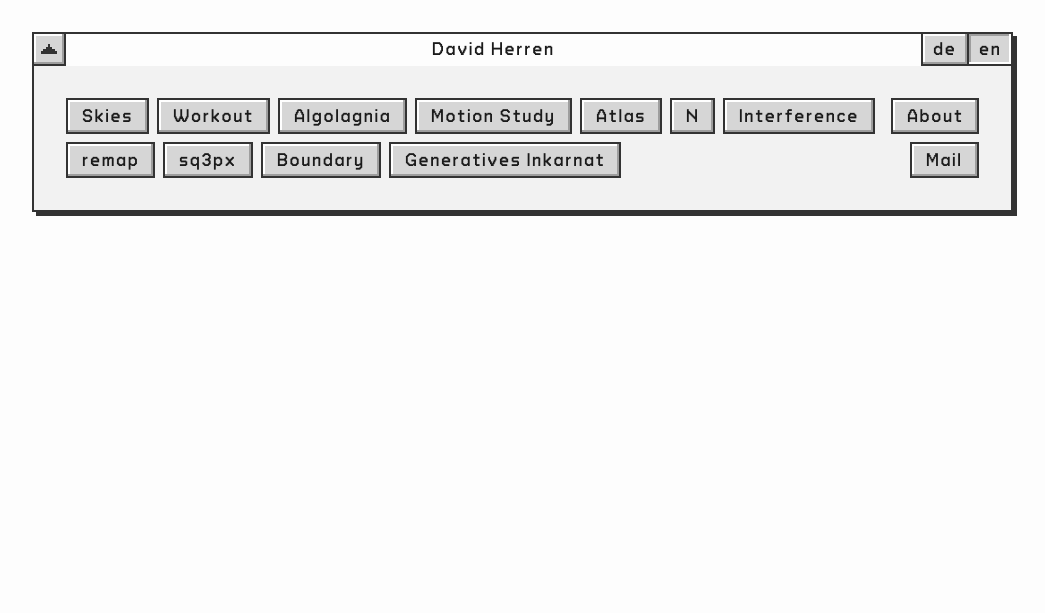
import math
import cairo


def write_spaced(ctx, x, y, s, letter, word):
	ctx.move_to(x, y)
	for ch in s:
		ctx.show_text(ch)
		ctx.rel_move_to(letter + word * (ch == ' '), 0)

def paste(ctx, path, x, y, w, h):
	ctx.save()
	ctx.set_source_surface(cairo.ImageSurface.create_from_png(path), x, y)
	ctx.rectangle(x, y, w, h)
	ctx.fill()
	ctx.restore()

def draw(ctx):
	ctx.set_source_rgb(0.992, 0.992, 0.992)
	ctx.paint()
	ctx.set_source_rgb(0.2, 0.2, 0.2)
	ctx.new_path()
	ctx.move_to(36, 212)
	ctx.line_to(36, 216)
	ctx.line_to(1017, 216)
	ctx.line_to(1017, 36)
	ctx.line_to(1013, 36)
	ctx.line_to(1013, 212)
	ctx.close_path()
	ctx.fill()
	ctx.set_source_rgb(0.949, 0.949, 0.949)
	ctx.rectangle(34, 66, 977, 144)
	ctx.fill()
	ctx.rectangle(33, 33, 979, 178)
	ctx.set_source_rgb(0.2, 0.2, 0.2)
	ctx.stroke()
	ctx.set_source_rgb(0.839, 0.839, 0.839)
	ctx.rectangle(36, 36, 26, 26)
	ctx.fill()
	ctx.save()
	ctx.rectangle(34, 34, 32, 32)
	ctx.clip()
	ctx.set_source_rgb(0.62, 0.62, 0.62)
	ctx.set_fill_rule(cairo.FILL_RULE_EVEN_ODD)
	ctx.new_path()
	ctx.move_to(-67, -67)
	ctx.line_to(165, -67)
	ctx.line_to(165, 165)
	ctx.line_to(-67, 165)
	ctx.close_path()
	ctx.move_to(28, 28)
	ctx.line_to(62, 28)
	ctx.line_to(62, 62)
	ctx.line_to(28, 62)
	ctx.close_path()
	ctx.fill()
	ctx.set_source_rgb(0.2, 0.2, 0.2)
	ctx.new_path()
	ctx.move_to(-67, -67)
	ctx.line_to(165, -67)
	ctx.line_to(165, 165)
	ctx.line_to(-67, 165)
	ctx.close_path()
	ctx.move_to(30, 30)
	ctx.line_to(64, 30)
	ctx.line_to(64, 64)
	ctx.line_to(30, 64)
	ctx.close_path()
	ctx.fill()
	ctx.restore()
	paste(ctx, 'media/1.png', 41, 44, 16, 10)
	ctx.select_font_face('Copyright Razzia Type')
	ctx.set_font_size(17.6)
	ctx.set_source_rgb(0.102, 0.102, 0.102)
	write_spaced(ctx, 432, 55, 'David Herren', 1.6, 0)
	ctx.set_source_rgb(0.839, 0.839, 0.839)
	ctx.rectangle(925, 36, 40, 26)
	ctx.fill()
	ctx.save()
	ctx.rectangle(921, 34, 48, 32)
	ctx.clip()
	ctx.set_source_rgb(0.62, 0.62, 0.62)
	ctx.set_fill_rule(cairo.FILL_RULE_EVEN_ODD)
	ctx.new_path()
	ctx.move_to(822, -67)
	ctx.line_to(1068, -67)
	ctx.line_to(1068, 165)
	ctx.line_to(822, 165)
	ctx.close_path()
	ctx.move_to(917, 28)
	ctx.line_to(965, 28)
	ctx.line_to(965, 62)
	ctx.line_to(917, 62)
	ctx.close_path()
	ctx.fill()
	ctx.set_source_rgb(0.2, 0.2, 0.2)
	ctx.new_path()
	ctx.move_to(822, -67)
	ctx.line_to(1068, -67)
	ctx.line_to(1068, 165)
	ctx.line_to(822, 165)
	ctx.close_path()
	ctx.move_to(923, 34)
	ctx.line_to(971, 34)
	ctx.line_to(971, 68)
	ctx.line_to(923, 68)
	ctx.close_path()
	ctx.fill()
	ctx.new_path()
	ctx.move_to(822, -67)
	ctx.line_to(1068, -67)
	ctx.line_to(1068, 165)
	ctx.line_to(822, 165)
	ctx.close_path()
	ctx.move_to(919, 30)
	ctx.line_to(967, 30)
	ctx.line_to(967, 64)
	ctx.line_to(919, 64)
	ctx.close_path()
	ctx.fill()
	ctx.restore()
	ctx.set_source_rgb(0.102, 0.102, 0.102)
	write_spaced(ctx, 933, 55, 'de', 1.6, 0)
	ctx.set_source_rgb(0.839, 0.839, 0.839)
	ctx.rectangle(971, 36, 38, 26)
	ctx.fill()
	ctx.save()
	ctx.rectangle(967, 34, 44, 32)
	ctx.clip()
	ctx.set_source_rgb(0.62, 0.62, 0.62)
	ctx.set_fill_rule(cairo.FILL_RULE_EVEN_ODD)
	ctx.new_path()
	ctx.move_to(868, -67)
	ctx.line_to(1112, -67)
	ctx.line_to(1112, 165)
	ctx.line_to(868, 165)
	ctx.close_path()
	ctx.move_to(971, 36)
	ctx.line_to(1017, 36)
	ctx.line_to(1017, 70)
	ctx.line_to(971, 70)
	ctx.close_path()
	ctx.fill()
	ctx.set_source_rgb(1, 1, 1)
	ctx.new_path()
	ctx.move_to(868, -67)
	ctx.line_to(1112, -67)
	ctx.line_to(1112, 165)
	ctx.line_to(868, 165)
	ctx.close_path()
	ctx.move_to(963, 28)
	ctx.line_to(1009, 28)
	ctx.line_to(1009, 62)
	ctx.line_to(963, 62)
	ctx.close_path()
	ctx.fill()
	ctx.set_source_rgb(0.2, 0.2, 0.2)
	ctx.new_path()
	ctx.move_to(868, -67)
	ctx.line_to(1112, -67)
	ctx.line_to(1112, 165)
	ctx.line_to(868, 165)
	ctx.close_path()
	ctx.move_to(969, 34)
	ctx.line_to(1015, 34)
	ctx.line_to(1015, 68)
	ctx.line_to(969, 68)
	ctx.close_path()
	ctx.fill()
	ctx.new_path()
	ctx.move_to(868, -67)
	ctx.line_to(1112, -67)
	ctx.line_to(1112, 165)
	ctx.line_to(868, 165)
	ctx.close_path()
	ctx.move_to(965, 30)
	ctx.line_to(1011, 30)
	ctx.line_to(1011, 64)
	ctx.line_to(965, 64)
	ctx.close_path()
	ctx.fill()
	ctx.restore()
	ctx.set_source_rgb(0.102, 0.102, 0.102)
	write_spaced(ctx, 979, 55, 'en', 1.6, 0)
	ctx.set_source_rgb(0.839, 0.839, 0.839)
	ctx.rectangle(70, 102, 75, 28)
	ctx.fill()
	ctx.save()
	ctx.rectangle(66, 98, 83, 36)
	ctx.clip()
	ctx.set_source_rgb(1, 1, 1)
	ctx.set_fill_rule(cairo.FILL_RULE_EVEN_ODD)
	ctx.new_path()
	ctx.move_to(-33, -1)
	ctx.line_to(248, -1)
	ctx.line_to(248, 233)
	ctx.line_to(-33, 233)
	ctx.close_path()
	ctx.move_to(70, 102)
	ctx.line_to(153, 102)
	ctx.line_to(153, 138)
	ctx.line_to(70, 138)
	ctx.close_path()
	ctx.fill()
	ctx.set_source_rgb(0.62, 0.62, 0.62)
	ctx.new_path()
	ctx.move_to(-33, -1)
	ctx.line_to(248, -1)
	ctx.line_to(248, 233)
	ctx.line_to(-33, 233)
	ctx.close_path()
	ctx.move_to(62, 94)
	ctx.line_to(145, 94)
	ctx.line_to(145, 130)
	ctx.line_to(62, 130)
	ctx.close_path()
	ctx.fill()
	ctx.set_source_rgb(0.2, 0.2, 0.2)
	ctx.new_path()
	ctx.move_to(-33, -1)
	ctx.line_to(248, -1)
	ctx.line_to(248, 233)
	ctx.line_to(-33, 233)
	ctx.close_path()
	ctx.move_to(68, 100)
	ctx.line_to(151, 100)
	ctx.line_to(151, 136)
	ctx.line_to(68, 136)
	ctx.close_path()
	ctx.fill()
	ctx.new_path()
	ctx.move_to(-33, -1)
	ctx.line_to(248, -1)
	ctx.line_to(248, 233)
	ctx.line_to(-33, 233)
	ctx.close_path()
	ctx.move_to(64, 96)
	ctx.line_to(147, 96)
	ctx.line_to(147, 132)
	ctx.line_to(64, 132)
	ctx.close_path()
	ctx.fill()
	ctx.restore()
	ctx.set_source_rgb(0.102, 0.102, 0.102)
	write_spaced(ctx, 82, 122, 'Skies', 1.6, 0)
	ctx.set_source_rgb(0.839, 0.839, 0.839)
	ctx.rectangle(161, 102, 105, 28)
	ctx.fill()
	ctx.save()
	ctx.rectangle(157, 98, 113, 36)
	ctx.clip()
	ctx.set_source_rgb(1, 1, 1)
	ctx.set_fill_rule(cairo.FILL_RULE_EVEN_ODD)
	ctx.new_path()
	ctx.move_to(58, -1)
	ctx.line_to(369, -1)
	ctx.line_to(369, 233)
	ctx.line_to(58, 233)
	ctx.close_path()
	ctx.move_to(161, 102)
	ctx.line_to(274, 102)
	ctx.line_to(274, 138)
	ctx.line_to(161, 138)
	ctx.close_path()
	ctx.fill()
	ctx.set_source_rgb(0.62, 0.62, 0.62)
	ctx.new_path()
	ctx.move_to(58, -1)
	ctx.line_to(369, -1)
	ctx.line_to(369, 233)
	ctx.line_to(58, 233)
	ctx.close_path()
	ctx.move_to(153, 94)
	ctx.line_to(266, 94)
	ctx.line_to(266, 130)
	ctx.line_to(153, 130)
	ctx.close_path()
	ctx.fill()
	ctx.set_source_rgb(0.2, 0.2, 0.2)
	ctx.new_path()
	ctx.move_to(58, -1)
	ctx.line_to(369, -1)
	ctx.line_to(369, 233)
	ctx.line_to(58, 233)
	ctx.close_path()
	ctx.move_to(159, 100)
	ctx.line_to(272, 100)
	ctx.line_to(272, 136)
	ctx.line_to(159, 136)
	ctx.close_path()
	ctx.fill()
	ctx.new_path()
	ctx.move_to(58, -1)
	ctx.line_to(369, -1)
	ctx.line_to(369, 233)
	ctx.line_to(58, 233)
	ctx.close_path()
	ctx.move_to(155, 96)
	ctx.line_to(268, 96)
	ctx.line_to(268, 132)
	ctx.line_to(155, 132)
	ctx.close_path()
	ctx.fill()
	ctx.restore()
	ctx.set_source_rgb(0.102, 0.102, 0.102)
	write_spaced(ctx, 173, 122, 'Workout', 1.6, 0)
	ctx.set_source_rgb(0.839, 0.839, 0.839)
	ctx.rectangle(282, 102, 121, 28)
	ctx.fill()
	ctx.save()
	ctx.rectangle(278, 98, 129, 36)
	ctx.clip()
	ctx.set_source_rgb(1, 1, 1)
	ctx.set_fill_rule(cairo.FILL_RULE_EVEN_ODD)
	ctx.new_path()
	ctx.move_to(179, -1)
	ctx.line_to(506, -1)
	ctx.line_to(506, 233)
	ctx.line_to(179, 233)
	ctx.close_path()
	ctx.move_to(282, 102)
	ctx.line_to(411, 102)
	ctx.line_to(411, 138)
	ctx.line_to(282, 138)
	ctx.close_path()
	ctx.fill()
	ctx.set_source_rgb(0.62, 0.62, 0.62)
	ctx.new_path()
	ctx.move_to(179, -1)
	ctx.line_to(506, -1)
	ctx.line_to(506, 233)
	ctx.line_to(179, 233)
	ctx.close_path()
	ctx.move_to(274, 94)
	ctx.line_to(403, 94)
	ctx.line_to(403, 130)
	ctx.line_to(274, 130)
	ctx.close_path()
	ctx.fill()
	ctx.set_source_rgb(0.2, 0.2, 0.2)
	ctx.new_path()
	ctx.move_to(179, -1)
	ctx.line_to(506, -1)
	ctx.line_to(506, 233)
	ctx.line_to(179, 233)
	ctx.close_path()
	ctx.move_to(280, 100)
	ctx.line_to(409, 100)
	ctx.line_to(409, 136)
	ctx.line_to(280, 136)
	ctx.close_path()
	ctx.fill()
	ctx.new_path()
	ctx.move_to(179, -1)
	ctx.line_to(506, -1)
	ctx.line_to(506, 233)
	ctx.line_to(179, 233)
	ctx.close_path()
	ctx.move_to(276, 96)
	ctx.line_to(405, 96)
	ctx.line_to(405, 132)
	ctx.line_to(276, 132)
	ctx.close_path()
	ctx.fill()
	ctx.restore()
	ctx.set_source_rgb(0.102, 0.102, 0.102)
	write_spaced(ctx, 294, 122, 'Algolagnia', 1.6, 0)
	ctx.set_source_rgb(0.839, 0.839, 0.839)
	ctx.rectangle(419, 102, 149, 28)
	ctx.fill()
	ctx.save()
	ctx.rectangle(415, 98, 157, 36)
	ctx.clip()
	ctx.set_source_rgb(1, 1, 1)
	ctx.set_fill_rule(cairo.FILL_RULE_EVEN_ODD)
	ctx.new_path()
	ctx.move_to(316, -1)
	ctx.line_to(671, -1)
	ctx.line_to(671, 233)
	ctx.line_to(316, 233)
	ctx.close_path()
	ctx.move_to(419, 102)
	ctx.line_to(576, 102)
	ctx.line_to(576, 138)
	ctx.line_to(419, 138)
	ctx.close_path()
	ctx.fill()
	ctx.set_source_rgb(0.62, 0.62, 0.62)
	ctx.new_path()
	ctx.move_to(316, -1)
	ctx.line_to(671, -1)
	ctx.line_to(671, 233)
	ctx.line_to(316, 233)
	ctx.close_path()
	ctx.move_to(411, 94)
	ctx.line_to(568, 94)
	ctx.line_to(568, 130)
	ctx.line_to(411, 130)
	ctx.close_path()
	ctx.fill()
	ctx.set_source_rgb(0.2, 0.2, 0.2)
	ctx.new_path()
	ctx.move_to(316, -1)
	ctx.line_to(671, -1)
	ctx.line_to(671, 233)
	ctx.line_to(316, 233)
	ctx.close_path()
	ctx.move_to(417, 100)
	ctx.line_to(574, 100)
	ctx.line_to(574, 136)
	ctx.line_to(417, 136)
	ctx.close_path()
	ctx.fill()
	ctx.new_path()
	ctx.move_to(316, -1)
	ctx.line_to(671, -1)
	ctx.line_to(671, 233)
	ctx.line_to(316, 233)
	ctx.close_path()
	ctx.move_to(413, 96)
	ctx.line_to(570, 96)
	ctx.line_to(570, 132)
	ctx.line_to(413, 132)
	ctx.close_path()
	ctx.fill()
	ctx.restore()
	ctx.set_source_rgb(0.102, 0.102, 0.102)
	write_spaced(ctx, 431, 122, 'Motion Study', 1.6, 0)
	ctx.set_source_rgb(0.839, 0.839, 0.839)
	ctx.rectangle(584, 102, 74, 28)
	ctx.fill()
	ctx.save()
	ctx.rectangle(580, 98, 82, 36)
	ctx.clip()
	ctx.set_source_rgb(1, 1, 1)
	ctx.set_fill_rule(cairo.FILL_RULE_EVEN_ODD)
	ctx.new_path()
	ctx.move_to(481, -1)
	ctx.line_to(761, -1)
	ctx.line_to(761, 233)
	ctx.line_to(481, 233)
	ctx.close_path()
	ctx.move_to(584, 102)
	ctx.line_to(666, 102)
	ctx.line_to(666, 138)
	ctx.line_to(584, 138)
	ctx.close_path()
	ctx.fill()
	ctx.set_source_rgb(0.62, 0.62, 0.62)
	ctx.new_path()
	ctx.move_to(481, -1)
	ctx.line_to(761, -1)
	ctx.line_to(761, 233)
	ctx.line_to(481, 233)
	ctx.close_path()
	ctx.move_to(576, 94)
	ctx.line_to(658, 94)
	ctx.line_to(658, 130)
	ctx.line_to(576, 130)
	ctx.close_path()
	ctx.fill()
	ctx.set_source_rgb(0.2, 0.2, 0.2)
	ctx.new_path()
	ctx.move_to(481, -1)
	ctx.line_to(761, -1)
	ctx.line_to(761, 233)
	ctx.line_to(481, 233)
	ctx.close_path()
	ctx.move_to(582, 100)
	ctx.line_to(664, 100)
	ctx.line_to(664, 136)
	ctx.line_to(582, 136)
	ctx.close_path()
	ctx.fill()
	ctx.new_path()
	ctx.move_to(481, -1)
	ctx.line_to(761, -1)
	ctx.line_to(761, 233)
	ctx.line_to(481, 233)
	ctx.close_path()
	ctx.move_to(578, 96)
	ctx.line_to(660, 96)
	ctx.line_to(660, 132)
	ctx.line_to(578, 132)
	ctx.close_path()
	ctx.fill()
	ctx.restore()
	ctx.set_source_rgb(0.102, 0.102, 0.102)
	write_spaced(ctx, 596, 122, 'Atlas', 1.6, 0)
	ctx.set_source_rgb(0.839, 0.839, 0.839)
	ctx.rectangle(674, 102, 37, 28)
	ctx.fill()
	ctx.save()
	ctx.rectangle(670, 98, 45, 36)
	ctx.clip()
	ctx.set_source_rgb(1, 1, 1)
	ctx.set_fill_rule(cairo.FILL_RULE_EVEN_ODD)
	ctx.new_path()
	ctx.move_to(571, -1)
	ctx.line_to(814, -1)
	ctx.line_to(814, 233)
	ctx.line_to(571, 233)
	ctx.close_path()
	ctx.move_to(674, 102)
	ctx.line_to(719, 102)
	ctx.line_to(719, 138)
	ctx.line_to(674, 138)
	ctx.close_path()
	ctx.fill()
	ctx.set_source_rgb(0.62, 0.62, 0.62)
	ctx.new_path()
	ctx.move_to(571, -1)
	ctx.line_to(814, -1)
	ctx.line_to(814, 233)
	ctx.line_to(571, 233)
	ctx.close_path()
	ctx.move_to(666, 94)
	ctx.line_to(711, 94)
	ctx.line_to(711, 130)
	ctx.line_to(666, 130)
	ctx.close_path()
	ctx.fill()
	ctx.set_source_rgb(0.2, 0.2, 0.2)
	ctx.new_path()
	ctx.move_to(571, -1)
	ctx.line_to(814, -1)
	ctx.line_to(814, 233)
	ctx.line_to(571, 233)
	ctx.close_path()
	ctx.move_to(672, 100)
	ctx.line_to(717, 100)
	ctx.line_to(717, 136)
	ctx.line_to(672, 136)
	ctx.close_path()
	ctx.fill()
	ctx.new_path()
	ctx.move_to(571, -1)
	ctx.line_to(814, -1)
	ctx.line_to(814, 233)
	ctx.line_to(571, 233)
	ctx.close_path()
	ctx.move_to(668, 96)
	ctx.line_to(713, 96)
	ctx.line_to(713, 132)
	ctx.line_to(668, 132)
	ctx.close_path()
	ctx.fill()
	ctx.restore()
	ctx.set_source_rgb(0.102, 0.102, 0.102)
	write_spaced(ctx, 686, 122, 'N', 1.6, 0)
	ctx.set_source_rgb(0.839, 0.839, 0.839)
	ctx.rectangle(727, 102, 144, 28)
	ctx.fill()
	ctx.save()
	ctx.rectangle(723, 98, 152, 36)
	ctx.clip()
	ctx.set_source_rgb(1, 1, 1)
	ctx.set_fill_rule(cairo.FILL_RULE_EVEN_ODD)
	ctx.new_path()
	ctx.move_to(624, -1)
	ctx.line_to(974, -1)
	ctx.line_to(974, 233)
	ctx.line_to(624, 233)
	ctx.close_path()
	ctx.move_to(727, 102)
	ctx.line_to(879, 102)
	ctx.line_to(879, 138)
	ctx.line_to(727, 138)
	ctx.close_path()
	ctx.fill()
	ctx.set_source_rgb(0.62, 0.62, 0.62)
	ctx.new_path()
	ctx.move_to(624, -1)
	ctx.line_to(974, -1)
	ctx.line_to(974, 233)
	ctx.line_to(624, 233)
	ctx.close_path()
	ctx.move_to(719, 94)
	ctx.line_to(871, 94)
	ctx.line_to(871, 130)
	ctx.line_to(719, 130)
	ctx.close_path()
	ctx.fill()
	ctx.set_source_rgb(0.2, 0.2, 0.2)
	ctx.new_path()
	ctx.move_to(624, -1)
	ctx.line_to(974, -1)
	ctx.line_to(974, 233)
	ctx.line_to(624, 233)
	ctx.close_path()
	ctx.move_to(725, 100)
	ctx.line_to(877, 100)
	ctx.line_to(877, 136)
	ctx.line_to(725, 136)
	ctx.close_path()
	ctx.fill()
	ctx.new_path()
	ctx.move_to(624, -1)
	ctx.line_to(974, -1)
	ctx.line_to(974, 233)
	ctx.line_to(624, 233)
	ctx.close_path()
	ctx.move_to(721, 96)
	ctx.line_to(873, 96)
	ctx.line_to(873, 132)
	ctx.line_to(721, 132)
	ctx.close_path()
	ctx.fill()
	ctx.restore()
	ctx.set_source_rgb(0.102, 0.102, 0.102)
	write_spaced(ctx, 739, 122, 'Interference', 1.6, 0)
	ctx.set_source_rgb(0.839, 0.839, 0.839)
	ctx.rectangle(70, 146, 81, 28)
	ctx.fill()
	ctx.save()
	ctx.rectangle(66, 142, 89, 36)
	ctx.clip()
	ctx.set_source_rgb(1, 1, 1)
	ctx.set_fill_rule(cairo.FILL_RULE_EVEN_ODD)
	ctx.new_path()
	ctx.move_to(-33, 43)
	ctx.line_to(254, 43)
	ctx.line_to(254, 277)
	ctx.line_to(-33, 277)
	ctx.close_path()
	ctx.move_to(70, 146)
	ctx.line_to(159, 146)
	ctx.line_to(159, 182)
	ctx.line_to(70, 182)
	ctx.close_path()
	ctx.fill()
	ctx.set_source_rgb(0.62, 0.62, 0.62)
	ctx.new_path()
	ctx.move_to(-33, 43)
	ctx.line_to(254, 43)
	ctx.line_to(254, 277)
	ctx.line_to(-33, 277)
	ctx.close_path()
	ctx.move_to(62, 138)
	ctx.line_to(151, 138)
	ctx.line_to(151, 174)
	ctx.line_to(62, 174)
	ctx.close_path()
	ctx.fill()
	ctx.set_source_rgb(0.2, 0.2, 0.2)
	ctx.new_path()
	ctx.move_to(-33, 43)
	ctx.line_to(254, 43)
	ctx.line_to(254, 277)
	ctx.line_to(-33, 277)
	ctx.close_path()
	ctx.move_to(68, 144)
	ctx.line_to(157, 144)
	ctx.line_to(157, 180)
	ctx.line_to(68, 180)
	ctx.close_path()
	ctx.fill()
	ctx.new_path()
	ctx.move_to(-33, 43)
	ctx.line_to(254, 43)
	ctx.line_to(254, 277)
	ctx.line_to(-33, 277)
	ctx.close_path()
	ctx.move_to(64, 140)
	ctx.line_to(153, 140)
	ctx.line_to(153, 176)
	ctx.line_to(64, 176)
	ctx.close_path()
	ctx.fill()
	ctx.restore()
	ctx.set_source_rgb(0.102, 0.102, 0.102)
	write_spaced(ctx, 82, 166, 'remap', 1.6, 0)
	ctx.set_source_rgb(0.839, 0.839, 0.839)
	ctx.rectangle(167, 146, 82, 28)
	ctx.fill()
	ctx.save()
	ctx.rectangle(163, 142, 90, 36)
	ctx.clip()
	ctx.set_source_rgb(1, 1, 1)
	ctx.set_fill_rule(cairo.FILL_RULE_EVEN_ODD)
	ctx.new_path()
	ctx.move_to(64, 43)
	ctx.line_to(352, 43)
	ctx.line_to(352, 277)
	ctx.line_to(64, 277)
	ctx.close_path()
	ctx.move_to(167, 146)
	ctx.line_to(257, 146)
	ctx.line_to(257, 182)
	ctx.line_to(167, 182)
	ctx.close_path()
	ctx.fill()
	ctx.set_source_rgb(0.62, 0.62, 0.62)
	ctx.new_path()
	ctx.move_to(64, 43)
	ctx.line_to(352, 43)
	ctx.line_to(352, 277)
	ctx.line_to(64, 277)
	ctx.close_path()
	ctx.move_to(159, 138)
	ctx.line_to(249, 138)
	ctx.line_to(249, 174)
	ctx.line_to(159, 174)
	ctx.close_path()
	ctx.fill()
	ctx.set_source_rgb(0.2, 0.2, 0.2)
	ctx.new_path()
	ctx.move_to(64, 43)
	ctx.line_to(352, 43)
	ctx.line_to(352, 277)
	ctx.line_to(64, 277)
	ctx.close_path()
	ctx.move_to(165, 144)
	ctx.line_to(255, 144)
	ctx.line_to(255, 180)
	ctx.line_to(165, 180)
	ctx.close_path()
	ctx.fill()
	ctx.new_path()
	ctx.move_to(64, 43)
	ctx.line_to(352, 43)
	ctx.line_to(352, 277)
	ctx.line_to(64, 277)
	ctx.close_path()
	ctx.move_to(161, 140)
	ctx.line_to(251, 140)
	ctx.line_to(251, 176)
	ctx.line_to(161, 176)
	ctx.close_path()
	ctx.fill()
	ctx.restore()
	ctx.set_source_rgb(0.102, 0.102, 0.102)
	write_spaced(ctx, 179, 166, 'sq3px', 1.6, 0)
	ctx.set_source_rgb(0.839, 0.839, 0.839)
	ctx.rectangle(265, 146, 112, 28)
	ctx.fill()
	ctx.save()
	ctx.rectangle(261, 142, 120, 36)
	ctx.clip()
	ctx.set_source_rgb(1, 1, 1)
	ctx.set_fill_rule(cairo.FILL_RULE_EVEN_ODD)
	ctx.new_path()
	ctx.move_to(162, 43)
	ctx.line_to(480, 43)
	ctx.line_to(480, 277)
	ctx.line_to(162, 277)
	ctx.close_path()
	ctx.move_to(265, 146)
	ctx.line_to(385, 146)
	ctx.line_to(385, 182)
	ctx.line_to(265, 182)
	ctx.close_path()
	ctx.fill()
	ctx.set_source_rgb(0.62, 0.62, 0.62)
	ctx.new_path()
	ctx.move_to(162, 43)
	ctx.line_to(480, 43)
	ctx.line_to(480, 277)
	ctx.line_to(162, 277)
	ctx.close_path()
	ctx.move_to(257, 138)
	ctx.line_to(377, 138)
	ctx.line_to(377, 174)
	ctx.line_to(257, 174)
	ctx.close_path()
	ctx.fill()
	ctx.set_source_rgb(0.2, 0.2, 0.2)
	ctx.new_path()
	ctx.move_to(162, 43)
	ctx.line_to(480, 43)
	ctx.line_to(480, 277)
	ctx.line_to(162, 277)
	ctx.close_path()
	ctx.move_to(263, 144)
	ctx.line_to(383, 144)
	ctx.line_to(383, 180)
	ctx.line_to(263, 180)
	ctx.close_path()
	ctx.fill()
	ctx.new_path()
	ctx.move_to(162, 43)
	ctx.line_to(480, 43)
	ctx.line_to(480, 277)
	ctx.line_to(162, 277)
	ctx.close_path()
	ctx.move_to(259, 140)
	ctx.line_to(379, 140)
	ctx.line_to(379, 176)
	ctx.line_to(259, 176)
	ctx.close_path()
	ctx.fill()
	ctx.restore()
	ctx.set_source_rgb(0.102, 0.102, 0.102)
	write_spaced(ctx, 277, 166, 'Boundary', 1.6, 0)
	ctx.set_source_rgb(0.839, 0.839, 0.839)
	ctx.rectangle(393, 146, 224, 28)
	ctx.fill()
	ctx.save()
	ctx.rectangle(389, 142, 232, 36)
	ctx.clip()
	ctx.set_source_rgb(1, 1, 1)
	ctx.set_fill_rule(cairo.FILL_RULE_EVEN_ODD)
	ctx.new_path()
	ctx.move_to(290, 43)
	ctx.line_to(720, 43)
	ctx.line_to(720, 277)
	ctx.line_to(290, 277)
	ctx.close_path()
	ctx.move_to(393, 146)
	ctx.line_to(625, 146)
	ctx.line_to(625, 182)
	ctx.line_to(393, 182)
	ctx.close_path()
	ctx.fill()
	ctx.set_source_rgb(0.62, 0.62, 0.62)
	ctx.new_path()
	ctx.move_to(290, 43)
	ctx.line_to(720, 43)
	ctx.line_to(720, 277)
	ctx.line_to(290, 277)
	ctx.close_path()
	ctx.move_to(385, 138)
	ctx.line_to(617, 138)
	ctx.line_to(617, 174)
	ctx.line_to(385, 174)
	ctx.close_path()
	ctx.fill()
	ctx.set_source_rgb(0.2, 0.2, 0.2)
	ctx.new_path()
	ctx.move_to(290, 43)
	ctx.line_to(720, 43)
	ctx.line_to(720, 277)
	ctx.line_to(290, 277)
	ctx.close_path()
	ctx.move_to(391, 144)
	ctx.line_to(623, 144)
	ctx.line_to(623, 180)
	ctx.line_to(391, 180)
	ctx.close_path()
	ctx.fill()
	ctx.new_path()
	ctx.move_to(290, 43)
	ctx.line_to(720, 43)
	ctx.line_to(720, 277)
	ctx.line_to(290, 277)
	ctx.close_path()
	ctx.move_to(387, 140)
	ctx.line_to(619, 140)
	ctx.line_to(619, 176)
	ctx.line_to(387, 176)
	ctx.close_path()
	ctx.fill()
	ctx.restore()
	ctx.set_source_rgb(0.102, 0.102, 0.102)
	write_spaced(ctx, 405, 166, 'Generatives Inkarnat', 1.6, 0)
	ctx.set_source_rgb(0.839, 0.839, 0.839)
	ctx.rectangle(895, 102, 80, 28)
	ctx.fill()
	ctx.save()
	ctx.rectangle(891, 98, 88, 36)
	ctx.clip()
	ctx.set_source_rgb(1, 1, 1)
	ctx.set_fill_rule(cairo.FILL_RULE_EVEN_ODD)
	ctx.new_path()
	ctx.move_to(792, -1)
	ctx.line_to(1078, -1)
	ctx.line_to(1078, 233)
	ctx.line_to(792, 233)
	ctx.close_path()
	ctx.move_to(895, 102)
	ctx.line_to(983, 102)
	ctx.line_to(983, 138)
	ctx.line_to(895, 138)
	ctx.close_path()
	ctx.fill()
	ctx.set_source_rgb(0.62, 0.62, 0.62)
	ctx.new_path()
	ctx.move_to(792, -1)
	ctx.line_to(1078, -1)
	ctx.line_to(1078, 233)
	ctx.line_to(792, 233)
	ctx.close_path()
	ctx.move_to(887, 94)
	ctx.line_to(975, 94)
	ctx.line_to(975, 130)
	ctx.line_to(887, 130)
	ctx.close_path()
	ctx.fill()
	ctx.set_source_rgb(0.2, 0.2, 0.2)
	ctx.new_path()
	ctx.move_to(792, -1)
	ctx.line_to(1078, -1)
	ctx.line_to(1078, 233)
	ctx.line_to(792, 233)
	ctx.close_path()
	ctx.move_to(893, 100)
	ctx.line_to(981, 100)
	ctx.line_to(981, 136)
	ctx.line_to(893, 136)
	ctx.close_path()
	ctx.fill()
	ctx.new_path()
	ctx.move_to(792, -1)
	ctx.line_to(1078, -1)
	ctx.line_to(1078, 233)
	ctx.line_to(792, 233)
	ctx.close_path()
	ctx.move_to(889, 96)
	ctx.line_to(977, 96)
	ctx.line_to(977, 132)
	ctx.line_to(889, 132)
	ctx.close_path()
	ctx.fill()
	ctx.restore()
	ctx.set_source_rgb(0.102, 0.102, 0.102)
	write_spaced(ctx, 907, 122, 'About', 1.6, 0)
	ctx.set_source_rgb(0.839, 0.839, 0.839)
	ctx.rectangle(914, 146, 61, 28)
	ctx.fill()
	ctx.save()
	ctx.rectangle(910, 142, 69, 36)
	ctx.clip()
	ctx.set_source_rgb(1, 1, 1)
	ctx.set_fill_rule(cairo.FILL_RULE_EVEN_ODD)
	ctx.new_path()
	ctx.move_to(811, 43)
	ctx.line_to(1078, 43)
	ctx.line_to(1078, 277)
	ctx.line_to(811, 277)
	ctx.close_path()
	ctx.move_to(914, 146)
	ctx.line_to(983, 146)
	ctx.line_to(983, 182)
	ctx.line_to(914, 182)
	ctx.close_path()
	ctx.fill()
	ctx.set_source_rgb(0.62, 0.62, 0.62)
	ctx.new_path()
	ctx.move_to(811, 43)
	ctx.line_to(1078, 43)
	ctx.line_to(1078, 277)
	ctx.line_to(811, 277)
	ctx.close_path()
	ctx.move_to(906, 138)
	ctx.line_to(975, 138)
	ctx.line_to(975, 174)
	ctx.line_to(906, 174)
	ctx.close_path()
	ctx.fill()
	ctx.set_source_rgb(0.2, 0.2, 0.2)
	ctx.new_path()
	ctx.move_to(811, 43)
	ctx.line_to(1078, 43)
	ctx.line_to(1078, 277)
	ctx.line_to(811, 277)
	ctx.close_path()
	ctx.move_to(912, 144)
	ctx.line_to(981, 144)
	ctx.line_to(981, 180)
	ctx.line_to(912, 180)
	ctx.close_path()
	ctx.fill()
	ctx.new_path()
	ctx.move_to(811, 43)
	ctx.line_to(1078, 43)
	ctx.line_to(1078, 277)
	ctx.line_to(811, 277)
	ctx.close_path()
	ctx.move_to(908, 140)
	ctx.line_to(977, 140)
	ctx.line_to(977, 176)
	ctx.line_to(908, 176)
	ctx.close_path()
	ctx.fill()
	ctx.restore()
	ctx.set_source_rgb(0.102, 0.102, 0.102)
	write_spaced(ctx, 926, 166, 'Mail', 1.6, 0)


surface = cairo.ImageSurface(cairo.FORMAT_RGB24, 1045, 613)
ctx = cairo.Context(surface)
options = cairo.FontOptions()
options.set_hint_metrics(cairo.HINT_METRICS_OFF)
options.set_hint_style(cairo.HINT_STYLE_NONE)
ctx.set_font_options(options)
ctx.set_miter_limit(4)
draw(ctx)
surface.write_to_png('image.png')
